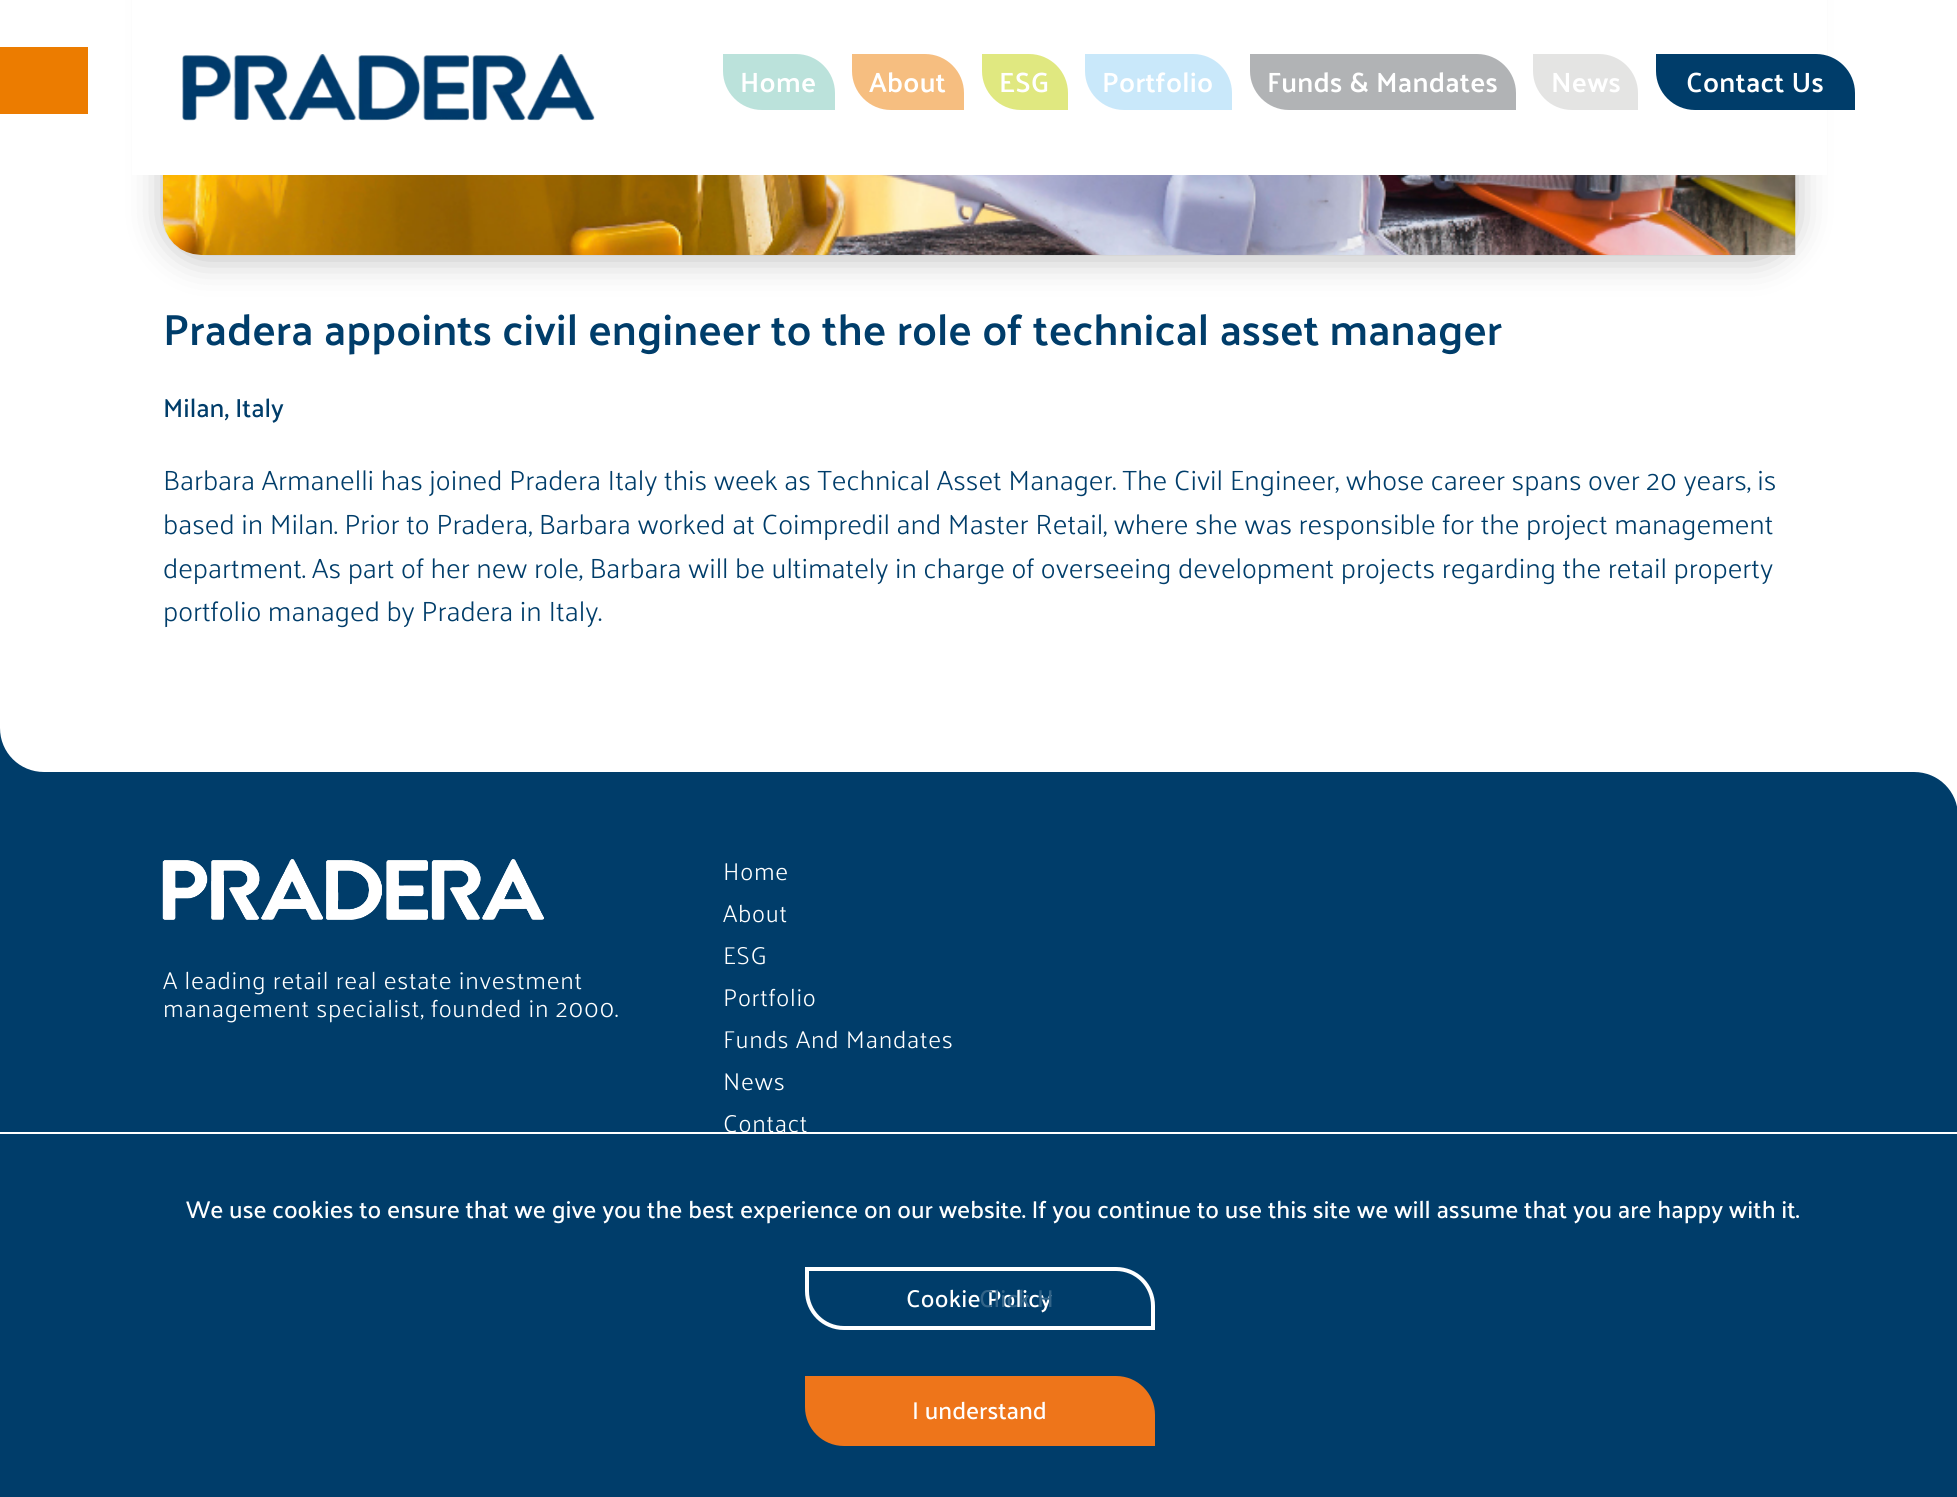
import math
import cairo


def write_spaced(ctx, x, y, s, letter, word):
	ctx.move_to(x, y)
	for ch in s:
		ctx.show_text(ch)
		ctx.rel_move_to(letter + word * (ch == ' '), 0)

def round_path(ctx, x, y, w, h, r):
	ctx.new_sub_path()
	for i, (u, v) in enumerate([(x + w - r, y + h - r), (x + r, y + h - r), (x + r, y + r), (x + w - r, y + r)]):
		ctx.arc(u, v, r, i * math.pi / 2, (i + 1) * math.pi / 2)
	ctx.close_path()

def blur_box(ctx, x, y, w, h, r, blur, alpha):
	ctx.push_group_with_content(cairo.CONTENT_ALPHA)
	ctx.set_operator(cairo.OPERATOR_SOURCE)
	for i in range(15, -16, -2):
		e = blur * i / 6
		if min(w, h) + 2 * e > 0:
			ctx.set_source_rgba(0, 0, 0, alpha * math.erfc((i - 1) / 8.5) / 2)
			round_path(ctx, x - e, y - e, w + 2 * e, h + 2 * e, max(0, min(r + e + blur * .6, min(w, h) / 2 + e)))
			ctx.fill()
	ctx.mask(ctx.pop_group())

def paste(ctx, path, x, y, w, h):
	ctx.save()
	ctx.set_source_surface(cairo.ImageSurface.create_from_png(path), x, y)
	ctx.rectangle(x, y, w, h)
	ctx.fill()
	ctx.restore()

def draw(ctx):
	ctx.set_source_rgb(1, 1, 1)
	ctx.paint()
	ctx.set_source_rgb(0, 0, 0)
	blur_box(ctx, 163, -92, 1633, 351, 39, 17.5, 0.26)
	ctx.set_source_rgb(1, 1, 1)
	ctx.rectangle(132, 0, 1695, 175)
	ctx.fill()
	ctx.set_source_rgb(0.922, 0.486, 0)
	ctx.rectangle(0, 47, 88, 67)
	ctx.fill()
	paste(ctx, 'media/1.png', 182, 54, 413, 67)
	ctx.set_source_rgb(0.733, 0.886, 0.859)
	ctx.new_path()
	ctx.move_to(723, 54)
	ctx.line_to(796, 54)
	ctx.curve_to(817.5, 54, 835, 71.5, 835, 93)
	ctx.line_to(835, 110)
	ctx.line_to(762, 110)
	ctx.curve_to(740.5, 110, 723, 92.5, 723, 71)
	ctx.close_path()
	ctx.fill()
	ctx.select_font_face('Palanquin SemiBold')
	ctx.set_font_size(28)
	ctx.set_source_rgb(1, 1, 1)
	write_spaced(ctx, 740, 92, 'Home', 0.3, 0)
	ctx.set_source_rgb(0.961, 0.745, 0.502)
	ctx.new_path()
	ctx.move_to(852, 54)
	ctx.line_to(925, 54)
	ctx.curve_to(946.5, 54, 964, 71.5, 964, 93)
	ctx.line_to(964, 110)
	ctx.line_to(891, 110)
	ctx.curve_to(869.5, 110, 852, 92.5, 852, 71)
	ctx.close_path()
	ctx.fill()
	ctx.set_source_rgb(1, 1, 1)
	write_spaced(ctx, 869, 92, 'About', 0.3, 0)
	ctx.set_source_rgb(0.878, 0.91, 0.502)
	ctx.new_path()
	ctx.move_to(982, 54)
	ctx.line_to(1029, 54)
	ctx.curve_to(1050.5, 54, 1068, 71.5, 1068, 93)
	ctx.line_to(1068, 110)
	ctx.line_to(1021, 110)
	ctx.curve_to(999.5, 110, 982, 92.5, 982, 71)
	ctx.close_path()
	ctx.fill()
	ctx.set_source_rgb(1, 1, 1)
	write_spaced(ctx, 999, 92, 'ESG', 0.3, 0)
	ctx.set_source_rgb(0.788, 0.91, 0.98)
	ctx.new_path()
	ctx.move_to(1085, 54)
	ctx.line_to(1193, 54)
	ctx.curve_to(1214.5, 54, 1232, 71.5, 1232, 93)
	ctx.line_to(1232, 110)
	ctx.line_to(1124, 110)
	ctx.curve_to(1102.5, 110, 1085, 92.5, 1085, 71)
	ctx.close_path()
	ctx.fill()
	ctx.set_source_rgb(1, 1, 1)
	write_spaced(ctx, 1102, 92, 'Portfolio', 0.3, 0)
	ctx.set_source_rgb(0.694, 0.702, 0.71)
	ctx.new_path()
	ctx.move_to(1250, 54)
	ctx.line_to(1477, 54)
	ctx.curve_to(1498.5, 54, 1516, 71.5, 1516, 93)
	ctx.line_to(1516, 110)
	ctx.line_to(1289, 110)
	ctx.curve_to(1267.5, 110, 1250, 92.5, 1250, 71)
	ctx.close_path()
	ctx.fill()
	ctx.set_source_rgb(1, 1, 1)
	write_spaced(ctx, 1267, 92, 'Funds & Mandates', 0.3, 0)
	ctx.set_source_rgb(0.894, 0.894, 0.89)
	ctx.new_path()
	ctx.move_to(1533, 54)
	ctx.line_to(1599, 54)
	ctx.curve_to(1620.5, 54, 1638, 71.5, 1638, 93)
	ctx.line_to(1638, 110)
	ctx.line_to(1572, 110)
	ctx.curve_to(1550.5, 110, 1533, 92.5, 1533, 71)
	ctx.close_path()
	ctx.fill()
	ctx.set_source_rgb(1, 1, 1)
	write_spaced(ctx, 1551, 92, 'News', 0.3, 0)
	ctx.set_source_rgb(0, 0.239, 0.416)
	ctx.new_path()
	ctx.move_to(1656, 54)
	ctx.line_to(1816, 54)
	ctx.curve_to(1837.5, 54, 1855, 71.5, 1855, 93)
	ctx.line_to(1855, 110)
	ctx.line_to(1695, 110)
	ctx.curve_to(1673.5, 110, 1656, 92.5, 1656, 71)
	ctx.close_path()
	ctx.fill()
	ctx.set_source_rgb(1, 1, 1)
	write_spaced(ctx, 1686, 92, 'Contact Us', 0.3, 0)
	paste(ctx, 'media/2.png', 162, 175, 1634, 80)
	ctx.set_font_size(43.75)
	ctx.set_source_rgb(0, 0.239, 0.416)
	ctx.move_to(163, 345)
	ctx.show_text('Pradera appoints civil engineer to the role of technical asset manager')
	ctx.select_font_face('Palanquin Medium')
	ctx.set_font_size(26.25)
	ctx.move_to(163, 417)
	ctx.show_text('Milan, Italy')
	ctx.select_font_face('Palanquin Light')
	ctx.set_font_size(28)
	for x, y, s in [
		(163, 490, 'Barbara Armanelli has joined Pradera Italy this week as Technical Asset Manager. The Civil Engineer, whose career spans over 20 years, is'),
		(163, 534, 'based in Milan. Prior to Pradera, Barbara worked at Coimpredil and Master Retail, where she was responsible for the project management'),
		(163, 578, 'department. As part of her new role, Barbara will be ultimately in charge of overseeing development projects regarding the retail property'),
		(163, 621, 'portfolio managed by Pradera in Italy.'),
	]:
		ctx.move_to(x, y)
		ctx.show_text(s)
	ctx.new_path()
	ctx.move_to(0, 772)
	ctx.line_to(1914, 772)
	ctx.curve_to(1938.5, 772, 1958, 791.5, 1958, 816)
	ctx.line_to(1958, 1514)
	ctx.line_to(0, 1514)
	ctx.close_path()
	ctx.fill()
	ctx.rectangle(0, 728, 44, 44)
	ctx.fill()
	ctx.set_source_rgb(1, 1, 1)
	ctx.new_path()
	ctx.move_to(0, 684)
	ctx.line_to(88, 684)
	ctx.line_to(88, 772)
	ctx.line_to(44, 772)
	ctx.curve_to(19.5, 772, 0, 752.5, 0, 728)
	ctx.close_path()
	ctx.fill()
	paste(ctx, 'media/3.png', 162, 859, 382, 61)
	ctx.set_font_size(24.5)
	for x, y, s in [
		(163, 989, 'A leading retail real estate investment'),
		(163, 1017, 'management specialist, founded in 2000.'),
		(723, 880, 'Home'),
		(723, 922, 'About'),
		(723, 964, 'ESG'),
		(723, 1006, 'Portfolio'),
		(723, 1048, 'Funds And Mandates'),
		(723, 1090, 'News'),
		(723, 1132, 'Contact'),
	]:
		write_spaced(ctx, x, y, s, 0.75, 0)
	ctx.rectangle(0, 1132, 1957, 2)
	ctx.fill()
	ctx.select_font_face('Palanquin Medium')
	ctx.move_to(186, 1218)
	ctx.show_text('We use cookies to ensure that we give you the best experience on our website. If you continue to use this site we will assume that you are happy with it.')
	ctx.new_path()
	ctx.move_to(807, 1269)
	ctx.line_to(1116, 1269)
	ctx.curve_to(1136.5, 1269, 1153, 1285.5, 1153, 1306)
	ctx.line_to(1153, 1328)
	ctx.line_to(844, 1328)
	ctx.curve_to(823.5, 1328, 807, 1311.5, 807, 1291)
	ctx.close_path()
	ctx.set_line_width(4)
	ctx.stroke()
	write_spaced(ctx, 906, 1307, 'Cookie Policy', 0.25, 0)
	ctx.set_source_rgb(0.2, 0.392, 0.533)
	write_spaced(ctx, 979, 1307, 'Click H', 0.25, 0)
	ctx.set_source_rgb(0.933, 0.459, 0.102)
	ctx.new_path()
	ctx.move_to(807, 1378)
	ctx.line_to(1116, 1378)
	ctx.curve_to(1136.5, 1378, 1153, 1394.5, 1153, 1415)
	ctx.line_to(1153, 1444)
	ctx.line_to(844, 1444)
	ctx.curve_to(823.5, 1444, 807, 1427.5, 807, 1407)
	ctx.close_path()
	ctx.fill_preserve()
	ctx.stroke()
	ctx.set_source_rgb(1, 1, 1)
	ctx.move_to(912, 1419)
	ctx.show_text('I understand')


surface = cairo.ImageSurface(cairo.FORMAT_RGB24, 1957, 1497)
ctx = cairo.Context(surface)
options = cairo.FontOptions()
options.set_hint_metrics(cairo.HINT_METRICS_OFF)
options.set_hint_style(cairo.HINT_STYLE_NONE)
ctx.set_font_options(options)
ctx.set_miter_limit(4)
draw(ctx)
surface.write_to_png('image.png')
